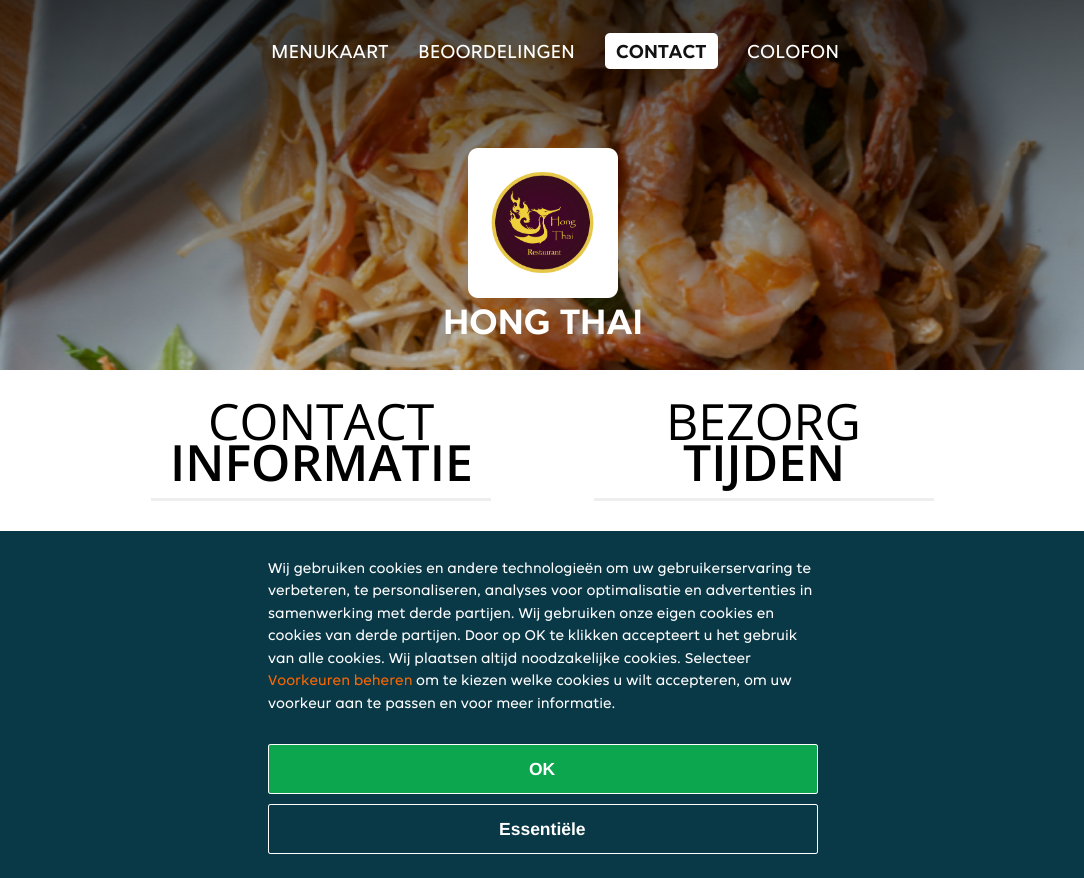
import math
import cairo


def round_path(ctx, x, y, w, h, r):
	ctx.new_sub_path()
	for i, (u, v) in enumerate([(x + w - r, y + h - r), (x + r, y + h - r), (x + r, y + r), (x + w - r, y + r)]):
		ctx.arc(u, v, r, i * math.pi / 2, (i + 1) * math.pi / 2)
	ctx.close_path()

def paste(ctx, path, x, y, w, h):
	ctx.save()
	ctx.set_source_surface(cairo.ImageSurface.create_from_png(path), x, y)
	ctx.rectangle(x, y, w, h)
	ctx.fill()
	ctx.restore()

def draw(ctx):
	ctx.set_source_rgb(1, 1, 1)
	ctx.paint()
	paste(ctx, 'media/1.png', 0, 0, 1084, 370)
	gradient = cairo.LinearGradient(542, 0, 543, 625)
	gradient.add_color_stop_rgba(0, 0, 0, 0, 0.7)
	gradient.add_color_stop_rgba(0.33, 0, 0, 0, 0.4)
	gradient.add_color_stop_rgba(0.67, 0, 0, 0, 0.2)
	gradient.add_color_stop_rgba(1, 0, 0, 0, 0)
	ctx.set_source(gradient)
	ctx.rectangle(0, 0, 1084, 370)
	ctx.fill()
	ctx.select_font_face('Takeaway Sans')
	ctx.set_font_size(20)
	ctx.set_source_rgb(1, 1, 1)
	ctx.move_to(271, 58)
	ctx.show_text('MENUKAART')
	ctx.move_to(418, 58)
	ctx.show_text('BEOORDELINGEN')
	round_path(ctx, 605, 33, 113, 36, 5)
	ctx.fill()
	ctx.select_font_face('Takeaway Sans', cairo.FONT_SLANT_NORMAL, cairo.FONT_WEIGHT_BOLD)
	ctx.set_source_rgb(0.071, 0.071, 0.071)
	ctx.move_to(616, 58)
	ctx.show_text('CONTACT')
	ctx.select_font_face('Takeaway Sans')
	ctx.set_source_rgb(1, 1, 1)
	ctx.move_to(747, 58)
	ctx.show_text('COLOFON')
	round_path(ctx, 468, 148, 150, 150, 10)
	ctx.fill()
	paste(ctx, 'media/2.png', 491, 172, 103, 101)
	ctx.select_font_face('Takeaway Sans', cairo.FONT_SLANT_NORMAL, cairo.FONT_WEIGHT_BOLD)
	ctx.set_font_size(37.5)
	ctx.move_to(443, 334)
	ctx.show_text('HONG THAI')
	ctx.select_font_face('Open Sans')
	ctx.set_font_size(50)
	ctx.set_source_rgb(0, 0, 0)
	ctx.move_to(208, 440)
	ctx.show_text('CONTACT')
	ctx.select_font_face('Open Sans SemiBold')
	ctx.move_to(170, 481)
	ctx.show_text('INFORMATIE')
	ctx.set_source_rgb(0.933, 0.933, 0.933)
	ctx.rectangle(151, 498, 340, 3)
	ctx.fill()
	ctx.select_font_face('Open Sans')
	ctx.set_source_rgb(0, 0, 0)
	ctx.move_to(666, 440)
	ctx.show_text('BEZORG')
	ctx.select_font_face('Open Sans SemiBold')
	ctx.move_to(683, 481)
	ctx.show_text('TIJDEN')
	ctx.set_source_rgb(0.933, 0.933, 0.933)
	ctx.rectangle(594, 498, 340, 3)
	ctx.fill()
	ctx.set_source_rgb(0.039, 0.22, 0.278)
	ctx.rectangle(0, 531, 1084, 347)
	ctx.fill()
	ctx.select_font_face('Takeaway Sans')
	ctx.set_font_size(15)
	ctx.set_source_rgb(1, 1, 1)
	for x, y, s in [
		(268, 573, 'Wij gebruiken cookies en andere technologieën om uw gebruikerservaring te'),
		(268, 595, 'verbeteren, te personaliseren, analyses voor optimalisatie en advertenties in'),
		(268, 618, 'samenwerking met derde partijen. Wij gebruiken onze eigen cookies en'),
		(268, 640, 'cookies van derde partijen. Door op OK te klikken accepteert u het gebruik'),
		(268, 663, 'van alle cookies. Wij plaatsen altijd noodzakelijke cookies. Selecteer'),
	]:
		ctx.move_to(x, y)
		ctx.show_text(s)
	ctx.set_source_rgb(0.973, 0.4, 0)
	ctx.move_to(268, 685)
	ctx.show_text('Voorkeuren beheren')
	ctx.set_source_rgb(1, 1, 1)
	ctx.move_to(416, 685)
	ctx.show_text('om te kiezen welke cookies u wilt accepteren, om uw')
	ctx.move_to(268, 708)
	ctx.show_text('voorkeur aan te passen en voor meer informatie.')
	ctx.set_source_rgb(0.047, 0.651, 0.31)
	round_path(ctx, 268.5, 744.5, 549, 49, 2)
	ctx.fill_preserve()
	ctx.set_source_rgb(1, 1, 1)
	ctx.set_line_width(1)
	ctx.stroke()
	ctx.select_font_face('Liberation Sans', cairo.FONT_SLANT_NORMAL, cairo.FONT_WEIGHT_BOLD)
	ctx.set_font_size(17.5)
	ctx.move_to(529, 775)
	ctx.show_text('OK')
	round_path(ctx, 268.5, 804.5, 549, 49, 2)
	ctx.stroke()
	ctx.move_to(499, 835)
	ctx.show_text('Essentiële')


surface = cairo.ImageSurface(cairo.FORMAT_RGB24, 1084, 878)
ctx = cairo.Context(surface)
options = cairo.FontOptions()
options.set_hint_metrics(cairo.HINT_METRICS_OFF)
options.set_hint_style(cairo.HINT_STYLE_NONE)
ctx.set_font_options(options)
ctx.set_miter_limit(4)
draw(ctx)
surface.write_to_png('image.png')
